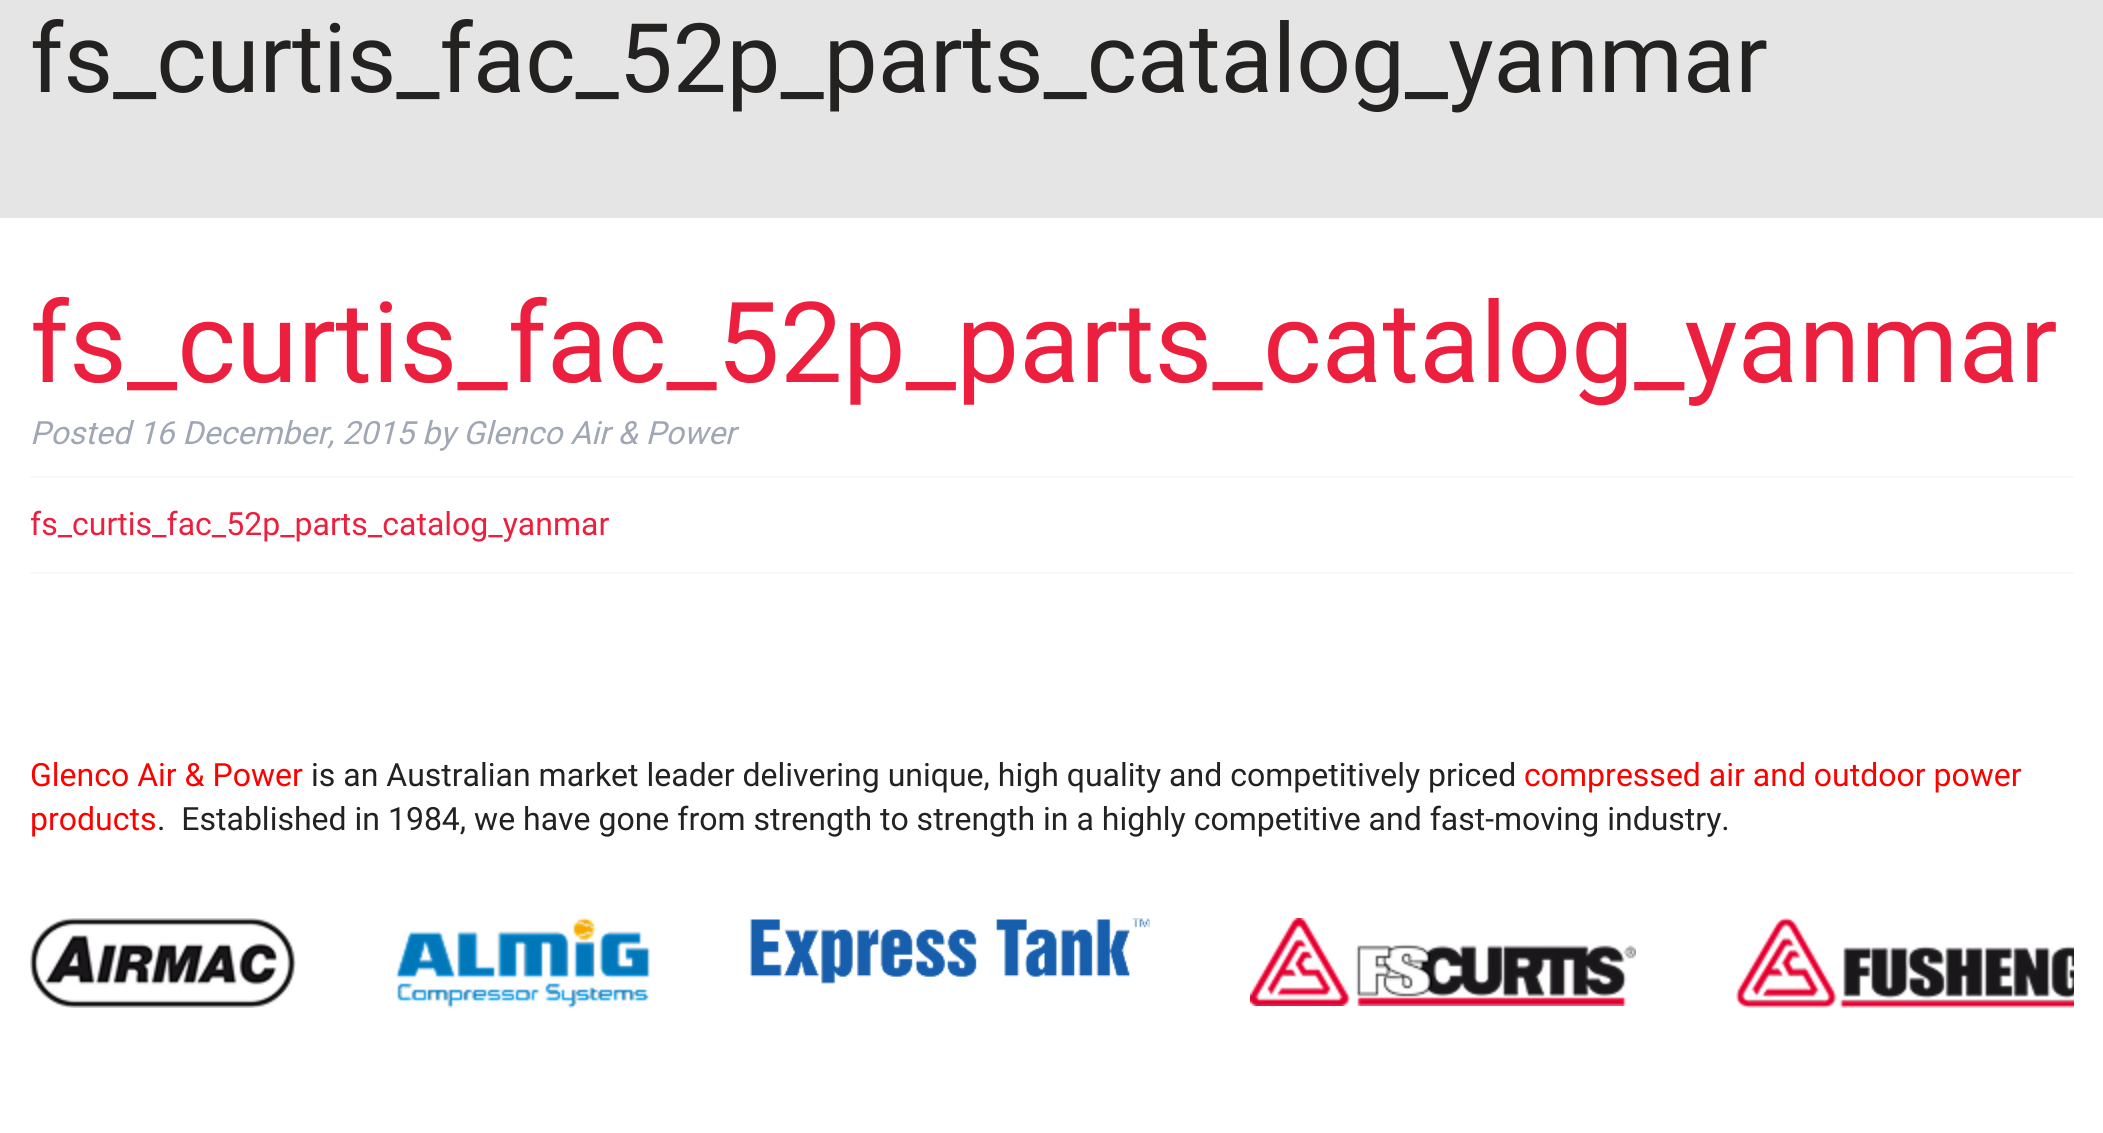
import math
import cairo


def paste(ctx, path, x, y, w, h):
	ctx.save()
	ctx.set_source_surface(cairo.ImageSurface.create_from_png(path), x, y)
	ctx.rectangle(x, y, w, h)
	ctx.fill()
	ctx.restore()

def draw(ctx):
	ctx.set_source_rgb(1, 1, 1)
	ctx.paint()
	ctx.set_source_rgb(0.898, 0.898, 0.898)
	ctx.rectangle(0, 0, 2103, 218)
	ctx.fill()
	ctx.select_font_face('Roboto')
	ctx.set_font_size(96)
	ctx.set_source_rgb(0.141, 0.129, 0.129)
	ctx.move_to(30, 92)
	ctx.show_text('fs_curtis_fac_52p_parts_catalog_yanmar')
	ctx.set_source_rgb(0.973, 0.976, 0.98)
	ctx.rectangle(30, 476, 2044, 2)
	ctx.fill()
	ctx.set_font_size(112)
	ctx.set_source_rgb(0.925, 0.125, 0.243)
	ctx.move_to(30, 382)
	ctx.show_text('fs_curtis_fac_52p_parts_catalog_yanmar')
	ctx.select_font_face('Roboto', cairo.FONT_SLANT_ITALIC)
	ctx.set_font_size(32)
	ctx.set_source_rgb(0.624, 0.651, 0.706)
	ctx.move_to(30, 444)
	ctx.show_text('Posted 16 December, 2015 by Glenco Air & Power')
	ctx.select_font_face('Roboto')
	ctx.set_source_rgb(0.925, 0.125, 0.243)
	ctx.move_to(30, 535)
	ctx.show_text('fs_curtis_fac_52p_parts_catalog_yanmar')
	ctx.set_source_rgb(0.973, 0.976, 0.98)
	ctx.rectangle(30, 572, 2044, 2)
	ctx.fill()
	ctx.set_source_rgb(1, 0, 0)
	ctx.move_to(30, 786)
	ctx.show_text('Glenco Air & Power')
	ctx.set_source_rgb(0.141, 0.129, 0.129)
	ctx.move_to(311, 786)
	ctx.show_text('is an Australian market leader delivering unique, high quality and competitively priced')
	ctx.set_source_rgb(1, 0, 0)
	ctx.move_to(1524, 786)
	ctx.show_text('compressed air and outdoor power')
	ctx.move_to(30, 830)
	ctx.show_text('products')
	ctx.set_source_rgb(0.141, 0.129, 0.129)
	ctx.move_to(157, 830)
	ctx.show_text('.  Established in 1984, we have gone from strength to strength in a highly competitive and fast-moving industry.')
	paste(ctx, 'media/1.png', 30, 918, 266, 90)
	paste(ctx, 'media/2.png', 396, 918, 254, 90)
	paste(ctx, 'media/3.png', 750, 918, 400, 66)
	paste(ctx, 'media/4.png', 1250, 918, 386, 88)
	paste(ctx, 'media/5.png', 1736, 918, 338, 90)


surface = cairo.ImageSurface(cairo.FORMAT_RGB24, 2103, 1133)
ctx = cairo.Context(surface)
options = cairo.FontOptions()
options.set_hint_metrics(cairo.HINT_METRICS_OFF)
options.set_hint_style(cairo.HINT_STYLE_NONE)
ctx.set_font_options(options)
ctx.set_miter_limit(4)
draw(ctx)
surface.write_to_png('image.png')
